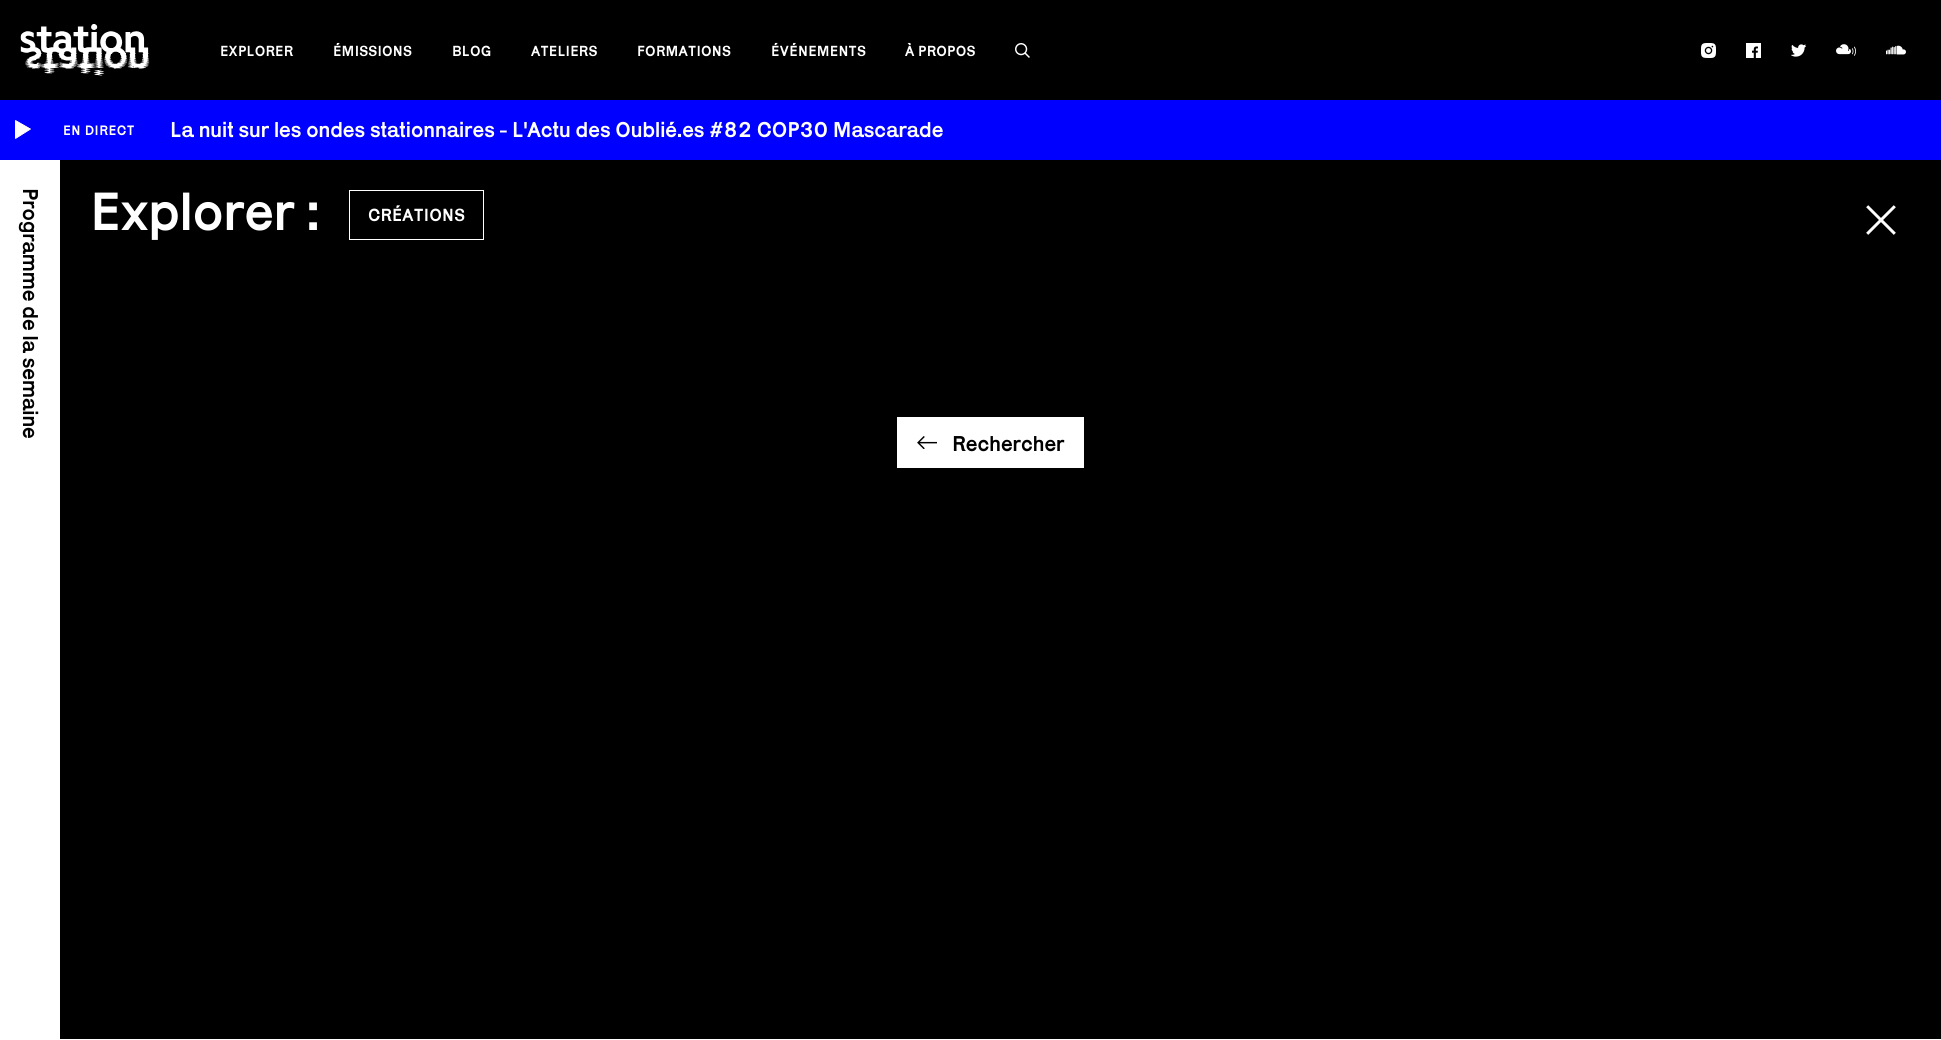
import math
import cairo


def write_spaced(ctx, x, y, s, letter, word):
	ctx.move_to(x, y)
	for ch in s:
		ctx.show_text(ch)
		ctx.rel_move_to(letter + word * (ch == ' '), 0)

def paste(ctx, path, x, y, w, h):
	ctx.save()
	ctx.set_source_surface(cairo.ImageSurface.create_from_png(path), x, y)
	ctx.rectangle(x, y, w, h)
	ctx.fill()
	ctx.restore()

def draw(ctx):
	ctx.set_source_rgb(0, 0, 0)
	ctx.paint()
	paste(ctx, 'media/1.png', 20, 24, 130, 52)
	ctx.select_font_face('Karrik')
	ctx.set_font_size(15)
	ctx.set_source_rgb(1, 1, 1)
	for x, y, s in [
		(220, 56, 'EXPLORER'),
		(333, 56, 'ÉMISSIONS'),
		(452, 56, 'BLOG'),
		(531, 56, 'ATELIERS'),
		(637, 56, 'FORMATIONS'),
		(771, 56, 'ÉVÉNEMENTS'),
		(905, 56, 'À PROPOS'),
	]:
		write_spaced(ctx, x, y, s, 0.25, 0)
	paste(ctx, 'media/2.png', 1015, 43, 15, 15)
	paste(ctx, 'media/3.png', 1701, 43, 15, 15)
	paste(ctx, 'media/4.png', 1746, 43, 15, 15)
	paste(ctx, 'media/5.png', 1791, 44, 15, 13)
	paste(ctx, 'media/6.png', 1836, 44, 20, 12)
	paste(ctx, 'media/7.png', 1886, 45, 20, 10)
	ctx.set_source_rgb(0, 0, 1)
	ctx.rectangle(0, 100, 1941, 60)
	ctx.fill()
	paste(ctx, 'media/8.png', 15, 120, 16, 19)
	ctx.set_font_size(14)
	ctx.set_source_rgb(1, 1, 1)
	write_spaced(ctx, 63, 135, 'EN DIRECT', 0.5, 0)
	ctx.set_font_size(22)
	ctx.move_to(170, 137)
	ctx.show_text('La nuit sur les ondes stationnaires - L\'Actu des Oublié.es #82 COP30 Mascarade')
	ctx.rectangle(0, 160, 60, 879)
	ctx.fill()
	ctx.set_source_rgb(0, 0, 0)
	ctx.save()
	ctx.translate(23, 188)
	ctx.rotate(90 * math.pi / 180)
	ctx.move_to(0, 0)
	ctx.show_text('Programme de la semaine')
	ctx.restore()
	ctx.set_font_size(55)
	ctx.set_source_rgb(1, 1, 1)
	ctx.move_to(90, 230)
	ctx.show_text('Explorer :')
	ctx.rectangle(349.5, 190.5, 134, 49)
	ctx.set_line_width(1)
	ctx.stroke()
	ctx.set_font_size(18)
	write_spaced(ctx, 368, 221, 'CRÉATIONS', 0.25, 0)
	paste(ctx, 'media/9.png', 1866, 205, 30, 30)
	ctx.rectangle(897, 417, 187, 51)
	ctx.fill()
	paste(ctx, 'media/10.png', 917, 436, 20, 13)
	ctx.set_font_size(22)
	ctx.set_source_rgb(0, 0, 0)
	ctx.move_to(952, 451)
	ctx.show_text('Rechercher')
	ctx.set_source_rgb(1, 1, 1)
	ctx.rectangle(0, 1039, 1941, 1)
	ctx.fill()


surface = cairo.ImageSurface(cairo.FORMAT_RGB24, 1941, 1040)
ctx = cairo.Context(surface)
options = cairo.FontOptions()
options.set_hint_metrics(cairo.HINT_METRICS_OFF)
options.set_hint_style(cairo.HINT_STYLE_NONE)
ctx.set_font_options(options)
ctx.set_miter_limit(4)
draw(ctx)
surface.write_to_png('image.png')
